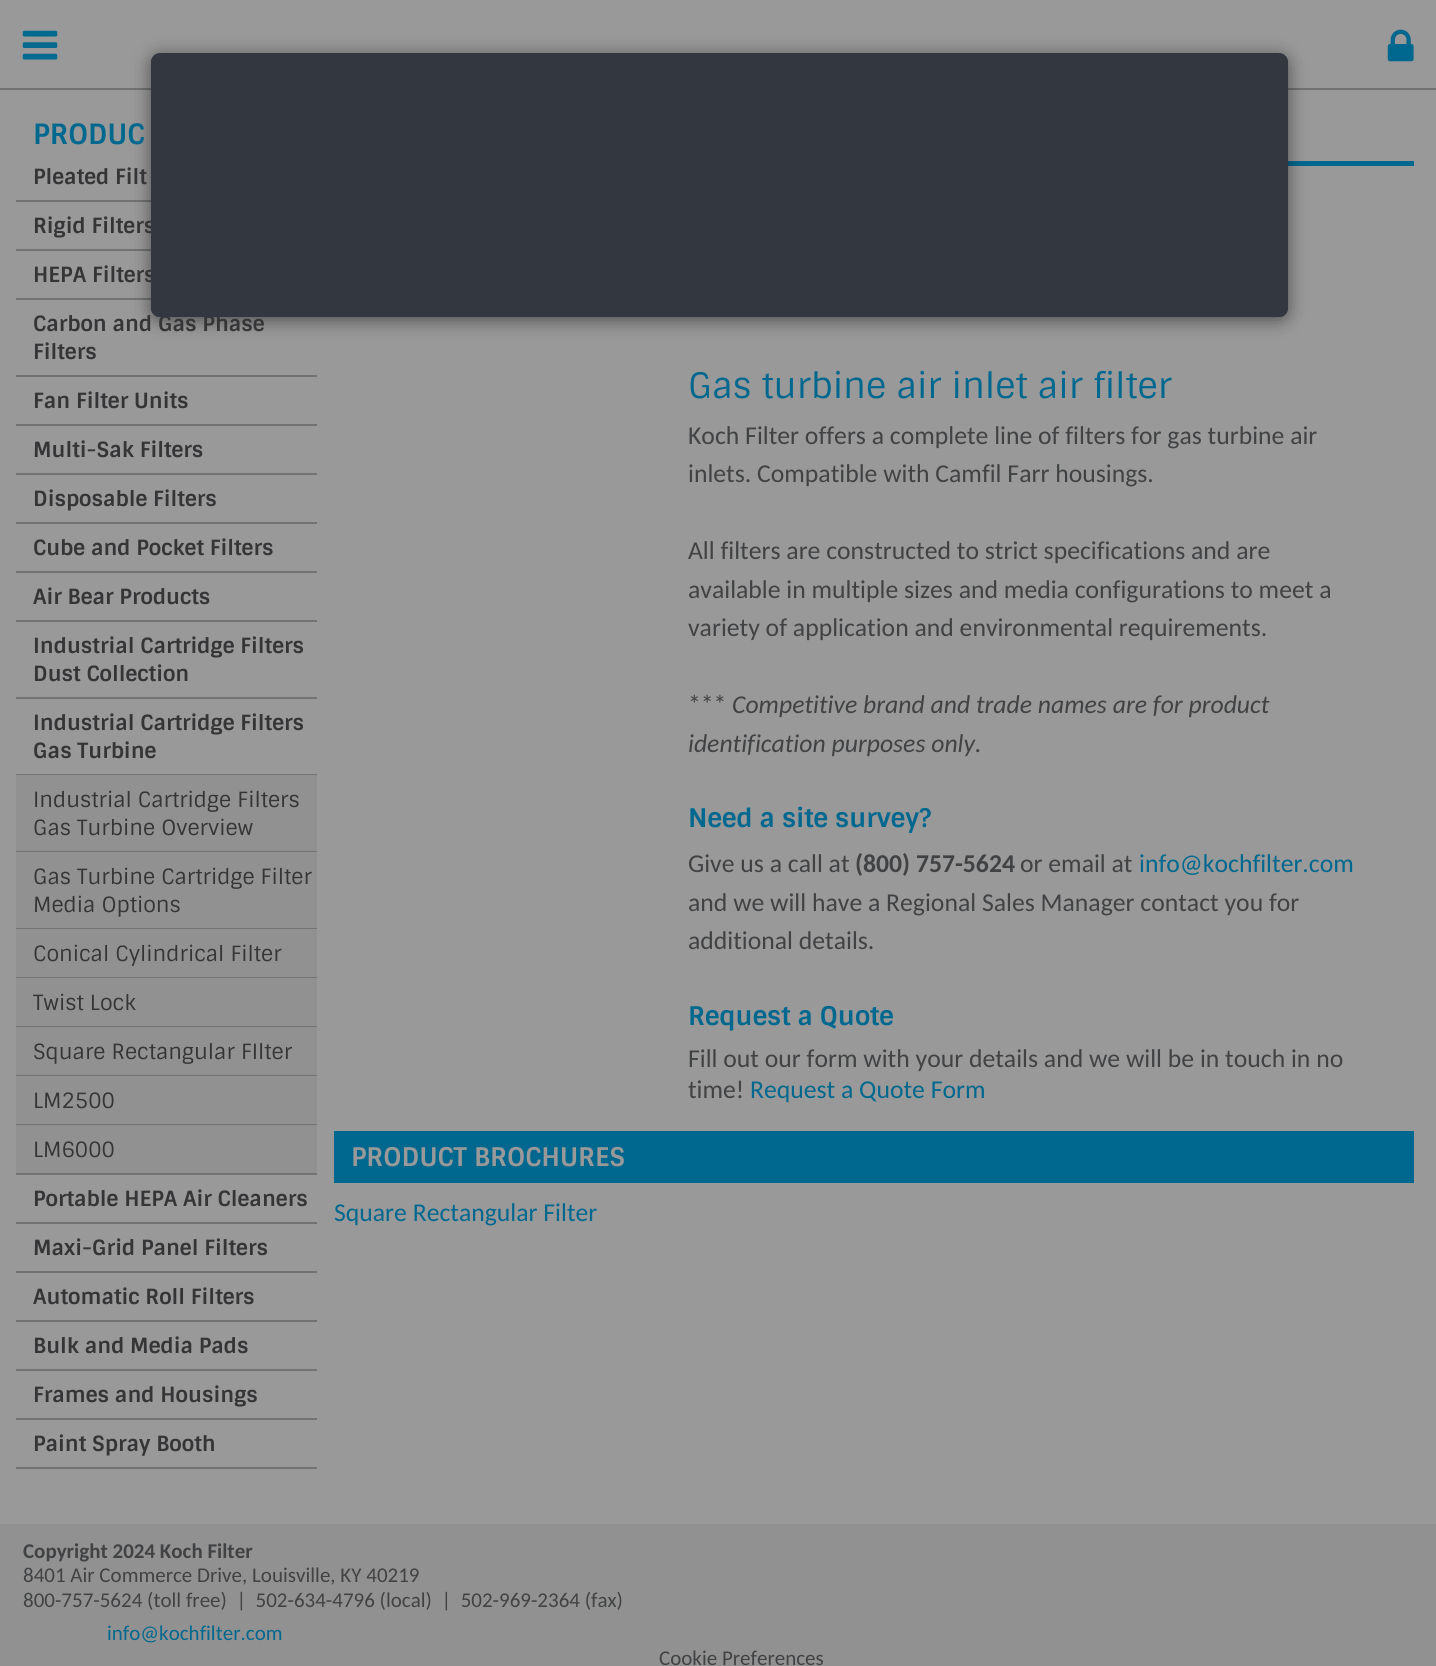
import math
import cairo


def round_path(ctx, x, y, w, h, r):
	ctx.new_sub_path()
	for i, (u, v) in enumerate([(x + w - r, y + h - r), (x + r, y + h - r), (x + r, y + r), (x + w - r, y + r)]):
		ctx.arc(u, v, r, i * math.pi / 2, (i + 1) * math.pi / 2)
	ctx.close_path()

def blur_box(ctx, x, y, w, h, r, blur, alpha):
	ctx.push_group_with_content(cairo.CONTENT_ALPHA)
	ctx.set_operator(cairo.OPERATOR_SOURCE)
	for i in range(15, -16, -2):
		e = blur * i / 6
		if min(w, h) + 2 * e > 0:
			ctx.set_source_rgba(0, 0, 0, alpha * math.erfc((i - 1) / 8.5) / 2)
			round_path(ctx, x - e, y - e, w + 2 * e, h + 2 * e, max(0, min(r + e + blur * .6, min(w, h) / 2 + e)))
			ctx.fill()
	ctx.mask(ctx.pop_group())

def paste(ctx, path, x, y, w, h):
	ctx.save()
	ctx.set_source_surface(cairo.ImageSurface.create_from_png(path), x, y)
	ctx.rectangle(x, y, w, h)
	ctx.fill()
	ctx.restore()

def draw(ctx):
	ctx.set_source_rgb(0.6, 0.6, 0.6)
	ctx.paint()
	ctx.set_source_rgb(0.443, 0.447, 0.451)
	ctx.rectangle(0, 88, 1436, 2)
	ctx.rectangle(16, 200, 135, 2)
	ctx.rectangle(16, 249, 135, 2)
	ctx.rectangle(16, 298, 135, 2)
	ctx.fill()
	ctx.set_source_rgb(0, 0.408, 0.561)
	ctx.rectangle(1288, 161, 126, 5)
	ctx.fill()
	ctx.set_source_rgb(0, 0, 0)
	blur_box(ctx, 151, 56, 1137, 264, 9, 9, 0.5)
	ctx.select_font_face('Sintony', cairo.FONT_SLANT_NORMAL, cairo.FONT_WEIGHT_BOLD)
	ctx.set_font_size(21)
	ctx.set_source_rgb(0.208, 0.208, 0.216)
	for x, y, s in [
		(33, 233, 'Rigid Filters'),
		(33, 282, 'HEPA Filters'),
		(33, 331, 'Carbon and Gas Phase'),
	]:
		ctx.move_to(x, y)
		ctx.show_text(s)
	ctx.set_source_rgb(0.2, 0.216, 0.251)
	round_path(ctx, 151, 53, 1137, 264, 9)
	ctx.fill()
	round_path(ctx, 151, 54, 1137, 263, 9)
	ctx.fill()
	paste(ctx, 'media/1.png', 22, 30, 36, 30)
	paste(ctx, 'media/2.png', 1387, 29, 27, 33)
	ctx.set_font_size(28)
	ctx.set_source_rgb(0, 0.408, 0.561)
	ctx.move_to(33, 144)
	ctx.show_text('PRODUC')
	ctx.set_font_size(21)
	ctx.set_source_rgb(0.208, 0.208, 0.216)
	ctx.move_to(33, 184)
	ctx.show_text('Pleated Filt')
	ctx.set_source_rgb(0.443, 0.447, 0.451)
	ctx.rectangle(16, 375, 301, 2)
	ctx.fill()
	ctx.set_source_rgb(0.208, 0.208, 0.216)
	ctx.move_to(33, 359)
	ctx.show_text('Filters')
	ctx.set_source_rgb(0.443, 0.447, 0.451)
	ctx.rectangle(16, 424, 301, 2)
	ctx.fill()
	ctx.set_source_rgb(0.208, 0.208, 0.216)
	ctx.move_to(33, 408)
	ctx.show_text('Fan Filter Units')
	ctx.set_source_rgb(0.443, 0.447, 0.451)
	ctx.rectangle(16, 473, 301, 2)
	ctx.fill()
	ctx.set_source_rgb(0.208, 0.208, 0.216)
	ctx.move_to(33, 457)
	ctx.show_text('Multi-Sak Filters')
	ctx.set_source_rgb(0.443, 0.447, 0.451)
	ctx.rectangle(16, 522, 301, 2)
	ctx.fill()
	ctx.set_source_rgb(0.208, 0.208, 0.216)
	ctx.move_to(33, 506)
	ctx.show_text('Disposable Filters')
	ctx.set_source_rgb(0.443, 0.447, 0.451)
	ctx.rectangle(16, 571, 301, 2)
	ctx.fill()
	ctx.set_source_rgb(0.208, 0.208, 0.216)
	ctx.move_to(33, 555)
	ctx.show_text('Cube and Pocket Filters')
	ctx.set_source_rgb(0.443, 0.447, 0.451)
	ctx.rectangle(16, 620, 301, 2)
	ctx.fill()
	ctx.set_source_rgb(0.208, 0.208, 0.216)
	ctx.move_to(33, 604)
	ctx.show_text('Air Bear Products')
	ctx.set_source_rgb(0.443, 0.447, 0.451)
	ctx.rectangle(16, 697, 301, 2)
	ctx.fill()
	ctx.set_source_rgb(0.208, 0.208, 0.216)
	ctx.move_to(33, 653)
	ctx.show_text('Industrial Cartridge Filters')
	ctx.move_to(33, 681)
	ctx.show_text('Dust Collection')
	ctx.set_source_rgb(0.443, 0.447, 0.451)
	ctx.rectangle(16, 774, 301, 1)
	ctx.fill()
	ctx.set_source_rgb(0.208, 0.208, 0.216)
	ctx.move_to(33, 730)
	ctx.show_text('Industrial Cartridge Filters')
	ctx.move_to(33, 758)
	ctx.show_text('Gas Turbine')
	ctx.set_source_rgb(0.569, 0.569, 0.569)
	ctx.rectangle(16, 775, 301, 76)
	ctx.fill()
	ctx.set_source_rgb(0.443, 0.447, 0.451)
	ctx.rectangle(16, 851, 301, 1)
	ctx.fill()
	ctx.select_font_face('Sintony')
	ctx.set_source_rgb(0.208, 0.208, 0.216)
	ctx.move_to(33, 807)
	ctx.show_text('Industrial Cartridge Filters')
	ctx.move_to(33, 835)
	ctx.show_text('Gas Turbine Overview')
	ctx.set_source_rgb(0.569, 0.569, 0.569)
	ctx.rectangle(16, 852, 301, 76)
	ctx.fill()
	ctx.set_source_rgb(0.443, 0.447, 0.451)
	ctx.rectangle(16, 928, 301, 1)
	ctx.fill()
	ctx.set_source_rgb(0.208, 0.208, 0.216)
	ctx.move_to(33, 884)
	ctx.show_text('Gas Turbine Cartridge Filter')
	ctx.move_to(33, 912)
	ctx.show_text('Media Options')
	ctx.set_source_rgb(0.569, 0.569, 0.569)
	ctx.rectangle(16, 929, 301, 48)
	ctx.fill()
	ctx.set_source_rgb(0.443, 0.447, 0.451)
	ctx.rectangle(16, 977, 301, 1)
	ctx.fill()
	ctx.set_source_rgb(0.208, 0.208, 0.216)
	ctx.move_to(33, 961)
	ctx.show_text('Conical Cylindrical Filter')
	ctx.set_source_rgb(0.569, 0.569, 0.569)
	ctx.rectangle(16, 978, 301, 48)
	ctx.fill()
	ctx.set_source_rgb(0.443, 0.447, 0.451)
	ctx.rectangle(16, 1026, 301, 1)
	ctx.fill()
	ctx.set_source_rgb(0.208, 0.208, 0.216)
	ctx.move_to(33, 1010)
	ctx.show_text('Twist Lock')
	ctx.set_source_rgb(0.569, 0.569, 0.569)
	ctx.rectangle(16, 1027, 301, 48)
	ctx.fill()
	ctx.set_source_rgb(0.443, 0.447, 0.451)
	ctx.rectangle(16, 1075, 301, 1)
	ctx.fill()
	ctx.set_source_rgb(0.208, 0.208, 0.216)
	ctx.move_to(33, 1059)
	ctx.show_text('Square Rectangular FIlter')
	ctx.set_source_rgb(0.569, 0.569, 0.569)
	ctx.rectangle(16, 1076, 301, 48)
	ctx.fill()
	ctx.set_source_rgb(0.443, 0.447, 0.451)
	ctx.rectangle(16, 1124, 301, 1)
	ctx.fill()
	ctx.set_source_rgb(0.208, 0.208, 0.216)
	ctx.move_to(33, 1108)
	ctx.show_text('LM2500')
	ctx.set_source_rgb(0.569, 0.569, 0.569)
	ctx.rectangle(16, 1125, 301, 48)
	ctx.fill()
	ctx.set_source_rgb(0.443, 0.447, 0.451)
	ctx.rectangle(16, 1173, 301, 2)
	ctx.fill()
	ctx.set_source_rgb(0.208, 0.208, 0.216)
	ctx.move_to(33, 1157)
	ctx.show_text('LM6000')
	ctx.set_source_rgb(0.443, 0.447, 0.451)
	ctx.rectangle(16, 1222, 301, 2)
	ctx.fill()
	ctx.select_font_face('Sintony', cairo.FONT_SLANT_NORMAL, cairo.FONT_WEIGHT_BOLD)
	ctx.set_source_rgb(0.208, 0.208, 0.216)
	ctx.move_to(33, 1206)
	ctx.show_text('Portable HEPA Air Cleaners')
	ctx.set_source_rgb(0.443, 0.447, 0.451)
	ctx.rectangle(16, 1271, 301, 2)
	ctx.fill()
	ctx.set_source_rgb(0.208, 0.208, 0.216)
	ctx.move_to(33, 1255)
	ctx.show_text('Maxi-Grid Panel Filters')
	ctx.set_source_rgb(0.443, 0.447, 0.451)
	ctx.rectangle(16, 1320, 301, 2)
	ctx.fill()
	ctx.set_source_rgb(0.208, 0.208, 0.216)
	ctx.move_to(33, 1304)
	ctx.show_text('Automatic Roll Filters')
	ctx.set_source_rgb(0.443, 0.447, 0.451)
	ctx.rectangle(16, 1369, 301, 2)
	ctx.fill()
	ctx.set_source_rgb(0.208, 0.208, 0.216)
	ctx.move_to(33, 1353)
	ctx.show_text('Bulk and Media Pads')
	ctx.set_source_rgb(0.443, 0.447, 0.451)
	ctx.rectangle(16, 1418, 301, 2)
	ctx.fill()
	ctx.set_source_rgb(0.208, 0.208, 0.216)
	ctx.move_to(33, 1402)
	ctx.show_text('Frames and Housings')
	ctx.set_source_rgb(0.443, 0.447, 0.451)
	ctx.rectangle(16, 1467, 301, 2)
	ctx.fill()
	ctx.set_source_rgb(0.208, 0.208, 0.216)
	ctx.move_to(33, 1451)
	ctx.show_text('Paint Spray Booth')
	ctx.select_font_face('Sintony')
	ctx.set_font_size(35)
	ctx.set_source_rgb(0, 0.408, 0.561)
	ctx.move_to(688, 398)
	ctx.show_text('Gas turbine air inlet air filter')
	ctx.select_font_face('Carlito')
	ctx.set_font_size(25.7)
	ctx.set_source_rgb(0.255, 0.259, 0.267)
	for x, y, s in [
		(688, 444, 'Koch Filter offers a complete line of filters for gas turbine air'),
		(688, 482, 'inlets. Compatible with Camfil Farr housings.'),
		(688, 559, 'All filters are constructed to strict specifications and are'),
		(688, 598, 'available in multiple sizes and media configurations to meet a'),
		(688, 636, 'variety of application and environmental requirements.'),
		(688, 713, '***'),
	]:
		ctx.move_to(x, y)
		ctx.show_text(s)
	ctx.select_font_face('Carlito', cairo.FONT_SLANT_ITALIC)
	ctx.move_to(732, 713)
	ctx.show_text('Competitive brand and trade names are for product')
	ctx.move_to(688, 752)
	ctx.show_text('identification purposes only.')
	ctx.select_font_face('Sintony', cairo.FONT_SLANT_NORMAL, cairo.FONT_WEIGHT_BOLD)
	ctx.set_source_rgb(0, 0.408, 0.561)
	ctx.move_to(688, 827)
	ctx.show_text('Need a site survey?')
	ctx.select_font_face('Carlito')
	ctx.set_source_rgb(0.255, 0.259, 0.267)
	ctx.move_to(688, 872)
	ctx.show_text('Give us a call at')
	ctx.select_font_face('Carlito', cairo.FONT_SLANT_NORMAL, cairo.FONT_WEIGHT_BOLD)
	ctx.move_to(855, 872)
	ctx.show_text('(800) 757-5624')
	ctx.select_font_face('Carlito')
	ctx.move_to(1020, 872)
	ctx.show_text('or email at')
	ctx.set_source_rgb(0, 0.408, 0.561)
	ctx.move_to(1139, 872)
	ctx.show_text('info@kochfilter.com')
	ctx.set_source_rgb(0.255, 0.259, 0.267)
	ctx.move_to(688, 911)
	ctx.show_text('and we will have a Regional Sales Manager contact you for')
	ctx.move_to(688, 949)
	ctx.show_text('additional details.')
	ctx.select_font_face('Sintony', cairo.FONT_SLANT_NORMAL, cairo.FONT_WEIGHT_BOLD)
	ctx.set_source_rgb(0, 0.408, 0.561)
	ctx.move_to(688, 1025)
	ctx.show_text('Request a Quote')
	ctx.select_font_face('Carlito')
	ctx.set_source_rgb(0.255, 0.259, 0.267)
	ctx.move_to(688, 1067)
	ctx.show_text('Fill out our form with your details and we will be in touch in no')
	ctx.move_to(688, 1098)
	ctx.show_text('time!')
	ctx.set_source_rgb(0, 0.408, 0.561)
	ctx.move_to(750, 1098)
	ctx.show_text('Request a Quote Form')
	ctx.rectangle(334, 1131, 1080, 52)
	ctx.fill()
	ctx.select_font_face('Sintony', cairo.FONT_SLANT_NORMAL, cairo.FONT_WEIGHT_BOLD)
	ctx.set_source_rgb(0.6, 0.6, 0.6)
	ctx.move_to(351, 1166)
	ctx.show_text('PRODUCT BROCHURES')
	ctx.select_font_face('Carlito')
	ctx.set_source_rgb(0, 0.408, 0.561)
	ctx.move_to(334, 1221)
	ctx.show_text('Square Rectangular Filter')
	ctx.set_source_rgb(0.569, 0.569, 0.569)
	ctx.rectangle(0, 1524, 1436, 142)
	ctx.fill()
	ctx.select_font_face('Carlito', cairo.FONT_SLANT_NORMAL, cairo.FONT_WEIGHT_BOLD)
	ctx.set_font_size(21)
	ctx.set_source_rgb(0.255, 0.259, 0.267)
	ctx.move_to(23, 1558)
	ctx.show_text('Copyright 2024 Koch Filter')
	ctx.select_font_face('Carlito')
	ctx.move_to(23, 1582)
	ctx.show_text('8401 Air Commerce Drive, Louisville, KY 40219')
	ctx.move_to(23, 1607)
	ctx.show_text('800-757-5624 (toll free)  |  502-634-4796 (local)  |  502-969-2364 (fax)')
	ctx.set_source_rgb(0, 0.408, 0.561)
	ctx.move_to(107, 1640)
	ctx.show_text('info@kochfilter.com')
	ctx.set_source_rgb(0.255, 0.259, 0.267)
	ctx.move_to(659, 1665)
	ctx.show_text('Cookie Preferences')


surface = cairo.ImageSurface(cairo.FORMAT_RGB24, 1436, 1666)
ctx = cairo.Context(surface)
options = cairo.FontOptions()
options.set_hint_metrics(cairo.HINT_METRICS_OFF)
options.set_hint_style(cairo.HINT_STYLE_NONE)
ctx.set_font_options(options)
ctx.set_miter_limit(4)
draw(ctx)
surface.write_to_png('image.png')
